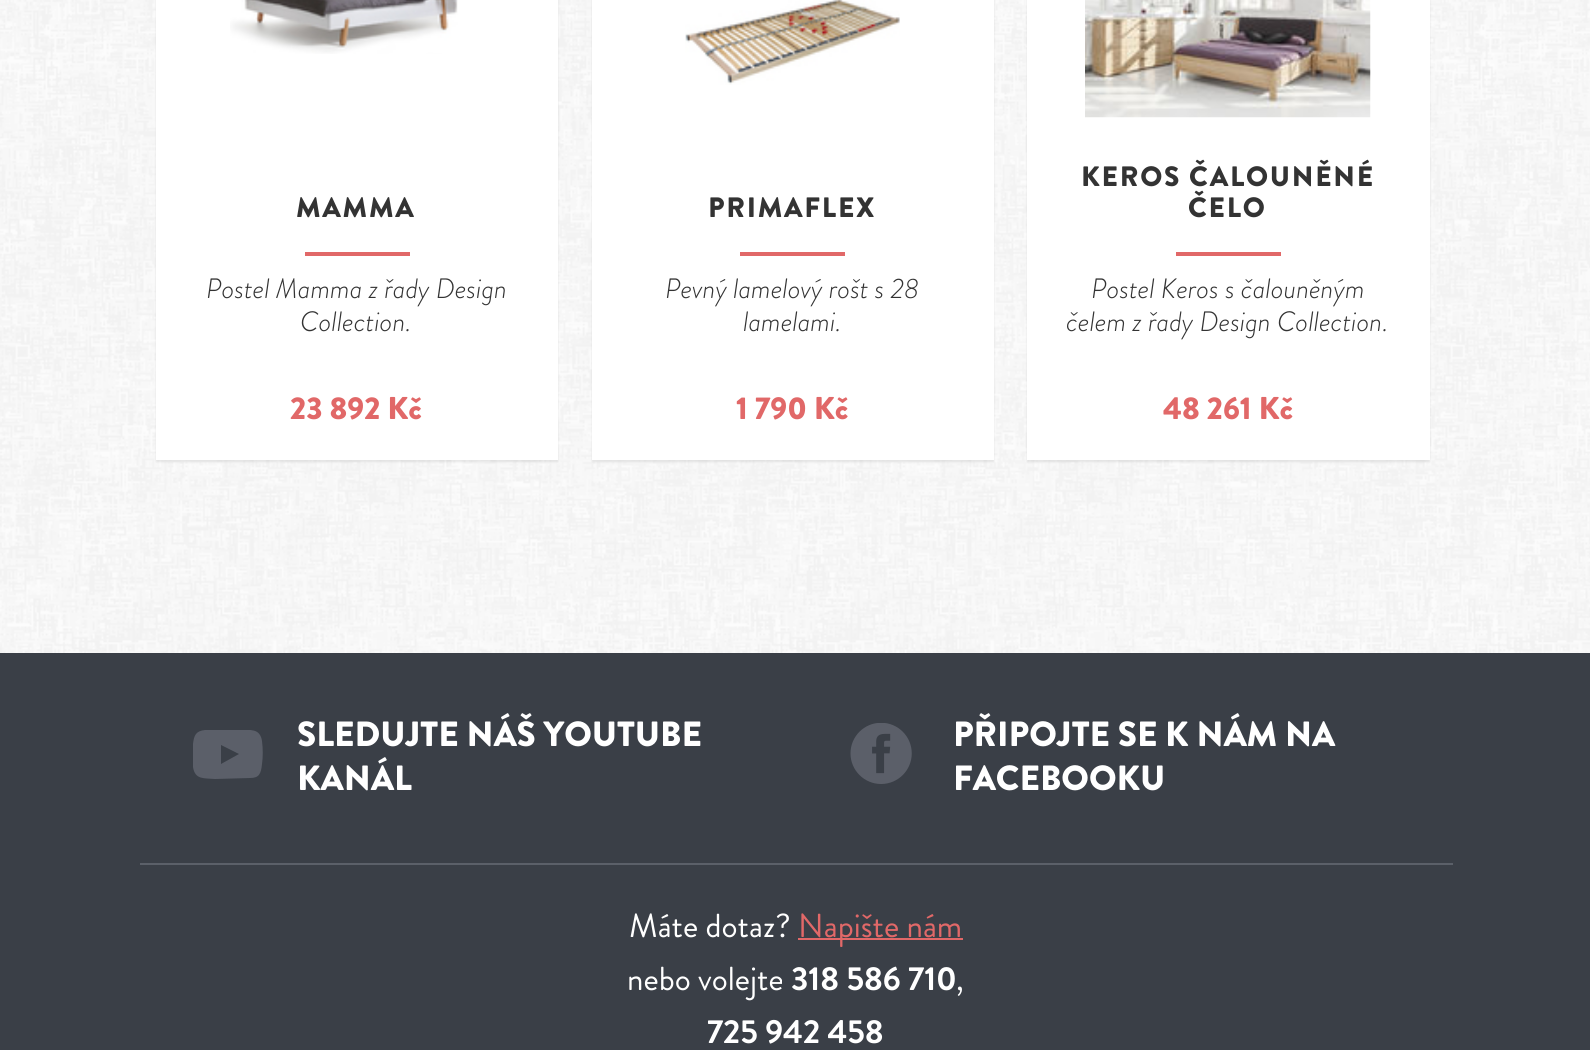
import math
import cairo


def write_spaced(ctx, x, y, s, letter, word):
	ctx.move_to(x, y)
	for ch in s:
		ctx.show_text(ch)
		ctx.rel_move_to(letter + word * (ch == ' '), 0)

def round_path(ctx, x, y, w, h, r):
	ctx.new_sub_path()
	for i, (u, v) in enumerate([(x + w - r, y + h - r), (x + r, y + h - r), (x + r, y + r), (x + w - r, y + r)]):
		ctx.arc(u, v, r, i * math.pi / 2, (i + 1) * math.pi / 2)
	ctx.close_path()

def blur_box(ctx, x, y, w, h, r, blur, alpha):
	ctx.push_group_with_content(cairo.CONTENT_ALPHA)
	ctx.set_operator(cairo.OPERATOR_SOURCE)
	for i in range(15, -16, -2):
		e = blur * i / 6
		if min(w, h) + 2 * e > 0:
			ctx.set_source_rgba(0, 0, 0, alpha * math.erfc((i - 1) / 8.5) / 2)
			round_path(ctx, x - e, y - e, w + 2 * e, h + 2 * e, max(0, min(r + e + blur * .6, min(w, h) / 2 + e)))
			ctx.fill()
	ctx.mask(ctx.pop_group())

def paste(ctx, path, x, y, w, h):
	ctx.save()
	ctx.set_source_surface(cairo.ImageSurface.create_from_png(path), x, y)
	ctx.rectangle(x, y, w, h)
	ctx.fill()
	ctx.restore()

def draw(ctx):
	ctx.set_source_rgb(1, 1, 1)
	ctx.paint()
	paste(ctx, 'media/1.png', 0, 0, 1590, 653)
	ctx.set_source_rgb(0.012, 0.012, 0.012)
	blur_box(ctx, 156, -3, 402, 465, 0, 1, 0.08)
	ctx.set_source_rgb(1, 1, 1)
	ctx.rectangle(156, 0, 402, 460)
	ctx.fill()
	paste(ctx, 'media/2.png', 230, 0, 228, 54)
	ctx.select_font_face('Brandon Grotesque Medium')
	ctx.set_font_size(28)
	ctx.set_source_rgb(0.2, 0.2, 0.2)
	write_spaced(ctx, 296, 217, 'MAMMA', 1.75, 0)
	ctx.set_source_rgb(0.882, 0.408, 0.408)
	ctx.rectangle(305, 252, 105, 4)
	ctx.fill()
	ctx.select_font_face('Brandon Grotesque Light', cairo.FONT_SLANT_ITALIC)
	ctx.set_source_rgb(0.2, 0.2, 0.2)
	ctx.move_to(206, 298)
	ctx.show_text('Postel Mamma z řady Design')
	ctx.move_to(300, 331)
	ctx.show_text('Collection.')
	ctx.select_font_face('Brandon Grotesque Medium')
	ctx.set_font_size(31.5)
	ctx.set_source_rgb(0.882, 0.408, 0.408)
	ctx.move_to(290, 419)
	ctx.show_text('23 892 Kč')
	ctx.set_source_rgb(0.012, 0.012, 0.012)
	blur_box(ctx, 592, -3, 402, 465, 0, 1, 0.08)
	ctx.set_source_rgb(1, 1, 1)
	ctx.rectangle(592, 0, 402, 460)
	ctx.fill()
	paste(ctx, 'media/3.png', 685, 0, 215, 85)
	ctx.set_font_size(28)
	ctx.set_source_rgb(0.2, 0.2, 0.2)
	write_spaced(ctx, 708, 217, 'PRIMAFLEX', 1.75, 0)
	ctx.set_source_rgb(0.882, 0.408, 0.408)
	ctx.rectangle(740, 252, 105, 4)
	ctx.fill()
	ctx.select_font_face('Brandon Grotesque Light', cairo.FONT_SLANT_ITALIC)
	ctx.set_source_rgb(0.2, 0.2, 0.2)
	ctx.move_to(665, 298)
	ctx.show_text('Pevný lamelový rošt s 28')
	ctx.move_to(743, 331)
	ctx.show_text('lamelami.')
	ctx.select_font_face('Brandon Grotesque Medium')
	ctx.set_font_size(31.5)
	ctx.set_source_rgb(0.882, 0.408, 0.408)
	ctx.move_to(736, 419)
	ctx.show_text('1 790 Kč')
	ctx.set_source_rgb(0.012, 0.012, 0.012)
	blur_box(ctx, 1027, -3, 403, 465, 0, 1, 0.08)
	ctx.set_source_rgb(1, 1, 1)
	ctx.rectangle(1027, 0, 403, 460)
	ctx.fill()
	paste(ctx, 'media/4.png', 1085, 0, 286, 118)
	ctx.set_font_size(28)
	ctx.set_source_rgb(0.2, 0.2, 0.2)
	write_spaced(ctx, 1081, 186, 'KEROS ČALOUNĚNÉ', 1.75, 0)
	write_spaced(ctx, 1188, 217, 'ČELO', 1.75, 0)
	ctx.set_source_rgb(0.882, 0.408, 0.408)
	ctx.rectangle(1176, 252, 105, 4)
	ctx.fill()
	ctx.select_font_face('Brandon Grotesque Light', cairo.FONT_SLANT_ITALIC)
	ctx.set_source_rgb(0.2, 0.2, 0.2)
	ctx.move_to(1091, 298)
	ctx.show_text('Postel Keros s čalouněným')
	ctx.move_to(1066, 331)
	ctx.show_text('čelem z řady Design Collection.')
	ctx.select_font_face('Brandon Grotesque Medium')
	ctx.set_font_size(31.5)
	ctx.set_source_rgb(0.882, 0.408, 0.408)
	ctx.move_to(1163, 419)
	ctx.show_text('48 261 Kč')
	ctx.set_source_rgb(0.227, 0.247, 0.278)
	ctx.rectangle(0, 653, 1590, 397)
	ctx.fill()
	ctx.set_source_rgb(0.357, 0.376, 0.412)
	ctx.rectangle(140, 863, 1313, 2)
	ctx.fill()
	ctx.save()
	ctx.rectangle(193, 730, 70, 49)
	ctx.clip()
	ctx.set_source_rgb(0.357, 0.373, 0.412)
	ctx.new_path()
	ctx.move_to(262, 741)
	ctx.curve_to(260, 728, 250, 730, 240, 730)
	ctx.line_to(205, 730)
	ctx.curve_to(196, 731, 194, 735, 193, 744)
	ctx.curve_to(192, 752, 192, 760, 193, 767)
	ctx.curve_to(195, 780, 204, 778, 215, 779)
	ctx.line_to(250, 778)
	ctx.curve_to(259, 778, 261, 774, 262, 764)
	ctx.curve_to(263, 757, 263, 749, 262, 741)
	ctx.close_path()
	ctx.move_to(221, 764)
	ctx.line_to(221, 745)
	ctx.line_to(239, 754)
	ctx.close_path()
	ctx.fill()
	ctx.restore()
	ctx.set_font_size(35)
	ctx.set_source_rgb(1, 1, 1)
	ctx.move_to(297, 746)
	ctx.show_text('SLEDUJTE NÁŠ YOUTUBE')
	ctx.move_to(297, 790)
	ctx.show_text('KANÁL')
	paste(ctx, 'media/5.png', 850, 723, 62, 61)
	ctx.move_to(953, 746)
	ctx.show_text('PŘIPOJTE SE K NÁM NA')
	ctx.move_to(953, 790)
	ctx.show_text('FACEBOOKU')
	ctx.select_font_face('Brandon Grotesque')
	ctx.set_font_size(33.25)
	ctx.move_to(629, 937)
	ctx.show_text('Máte dotaz?')
	ctx.set_source_rgb(0.882, 0.408, 0.408)
	ctx.rectangle(798, 938, 165, 2)
	ctx.fill()
	ctx.move_to(798, 937)
	ctx.show_text('Napište nám')
	ctx.set_source_rgb(1, 1, 1)
	ctx.move_to(627, 990)
	ctx.show_text('nebo volejte')
	ctx.select_font_face('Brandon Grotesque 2')
	ctx.move_to(791, 990)
	ctx.show_text('318 586 710')
	ctx.select_font_face('Brandon Grotesque')
	ctx.move_to(956, 990)
	ctx.show_text(',')
	ctx.select_font_face('Brandon Grotesque 2')
	ctx.move_to(707, 1043)
	ctx.show_text('725 942 458')


surface = cairo.ImageSurface(cairo.FORMAT_RGB24, 1590, 1050)
ctx = cairo.Context(surface)
options = cairo.FontOptions()
options.set_hint_metrics(cairo.HINT_METRICS_OFF)
options.set_hint_style(cairo.HINT_STYLE_NONE)
ctx.set_font_options(options)
ctx.set_miter_limit(4)
draw(ctx)
surface.write_to_png('image.png')
